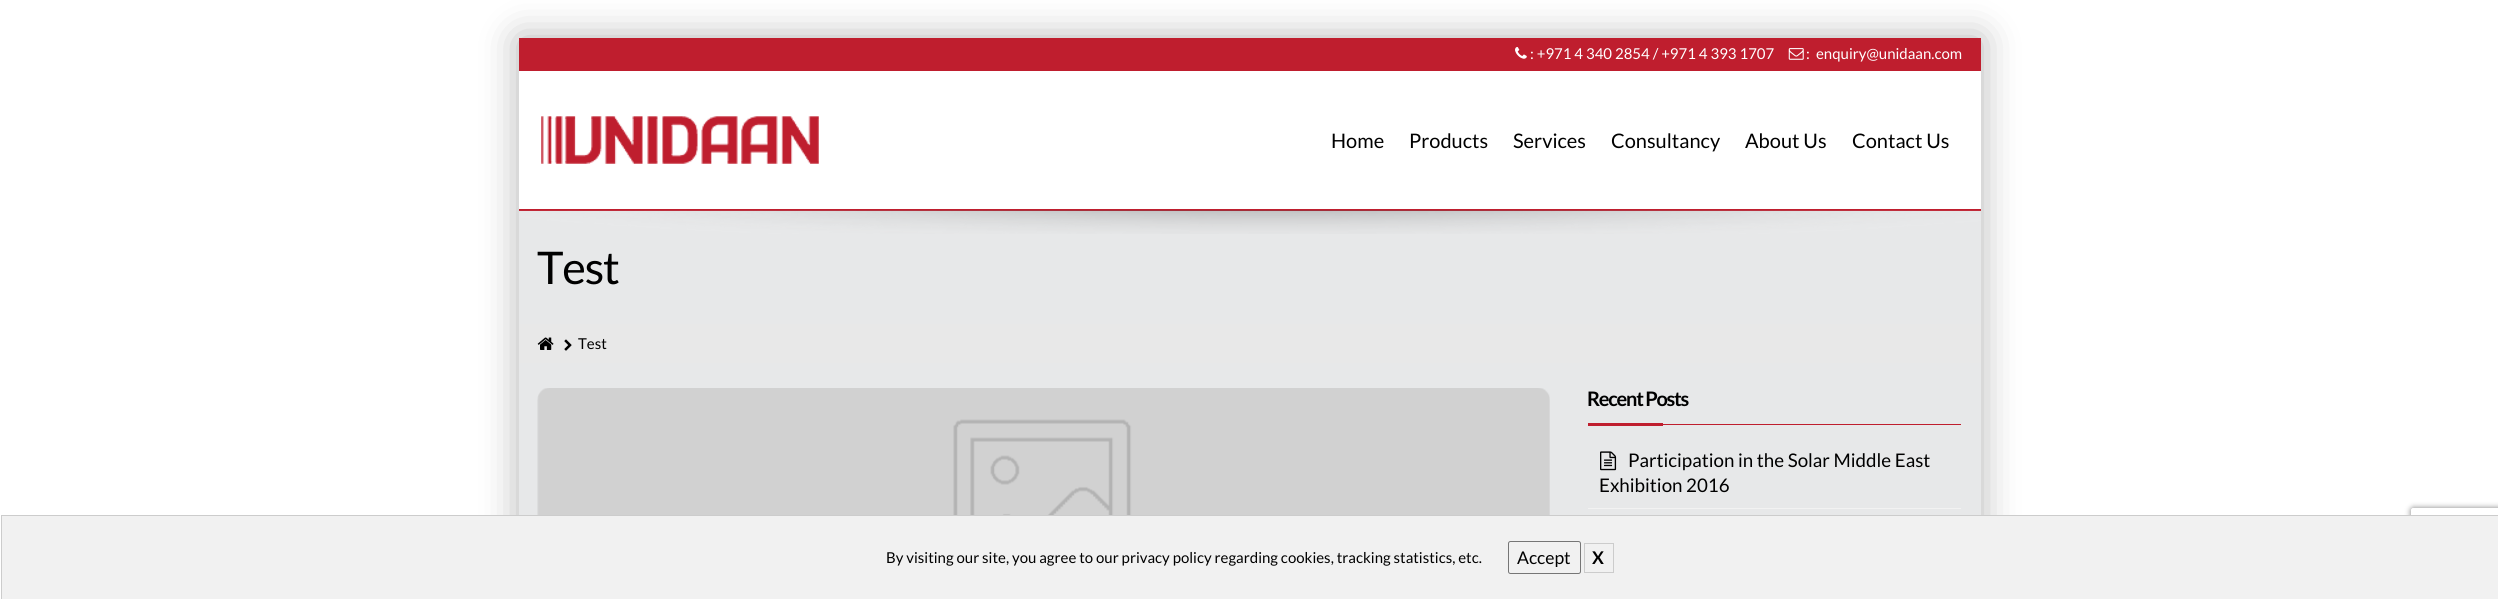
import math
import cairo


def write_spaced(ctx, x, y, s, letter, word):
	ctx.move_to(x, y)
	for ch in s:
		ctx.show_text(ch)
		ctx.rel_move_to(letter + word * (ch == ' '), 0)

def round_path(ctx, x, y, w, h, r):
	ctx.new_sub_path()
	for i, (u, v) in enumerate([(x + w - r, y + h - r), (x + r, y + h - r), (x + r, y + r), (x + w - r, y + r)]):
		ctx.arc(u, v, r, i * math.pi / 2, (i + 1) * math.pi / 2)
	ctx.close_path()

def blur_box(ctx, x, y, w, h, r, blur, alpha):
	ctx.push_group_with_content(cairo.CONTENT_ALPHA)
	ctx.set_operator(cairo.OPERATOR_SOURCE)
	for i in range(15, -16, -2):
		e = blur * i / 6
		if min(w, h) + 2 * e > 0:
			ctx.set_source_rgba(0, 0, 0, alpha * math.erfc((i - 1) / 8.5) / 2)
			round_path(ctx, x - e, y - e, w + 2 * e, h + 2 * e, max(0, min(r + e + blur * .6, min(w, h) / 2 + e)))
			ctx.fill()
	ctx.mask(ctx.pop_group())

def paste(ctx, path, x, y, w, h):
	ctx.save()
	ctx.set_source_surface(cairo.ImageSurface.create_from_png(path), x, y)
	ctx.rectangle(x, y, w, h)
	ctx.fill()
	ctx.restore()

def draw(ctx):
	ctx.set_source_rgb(1, 1, 1)
	ctx.paint()
	ctx.save()
	ctx.set_fill_rule(cairo.FILL_RULE_EVEN_ODD)
	ctx.new_path()
	ctx.move_to(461, 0)
	ctx.line_to(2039, 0)
	ctx.line_to(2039, 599)
	ctx.line_to(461, 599)
	ctx.close_path()
	ctx.move_to(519, 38)
	ctx.line_to(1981, 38)
	ctx.line_to(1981, 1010)
	ctx.line_to(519, 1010)
	ctx.close_path()
	ctx.clip()
	ctx.set_source_rgb(0, 0, 0)
	blur_box(ctx, 519, 38, 1462, 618, 0, 19, 0.3)
	ctx.restore()
	ctx.set_source_rgb(0.749, 0.118, 0.18)
	ctx.rectangle(519, 38, 1462, 33)
	ctx.fill()
	paste(ctx, 'media/1.png', 1515, 47, 12, 12)
	ctx.select_font_face('Lato')
	ctx.set_font_size(15)
	ctx.set_source_rgb(1, 1, 1)
	ctx.move_to(1530, 59)
	ctx.show_text(': +971 4 340 2854 / +971 4 393 1707')
	paste(ctx, 'media/2.png', 1788, 48, 16, 12)
	ctx.move_to(1806, 59)
	ctx.show_text(':')
	ctx.move_to(1816, 59)
	ctx.show_text('enquiry@unidaan.com')
	ctx.set_source_rgb(0.749, 0.118, 0.18)
	ctx.rectangle(519, 209, 1462, 2)
	ctx.fill()
	paste(ctx, 'media/3.png', 541, 116, 278, 48)
	ctx.set_font_size(20)
	ctx.set_source_rgb(0, 0, 0)
	for x, y, s in [
		(1331, 148, 'Home'),
		(1409, 148, 'Products'),
		(1513, 148, 'Services'),
		(1611, 148, 'Consultancy'),
		(1745, 148, 'About Us'),
		(1852, 148, 'Contact Us'),
	]:
		ctx.move_to(x, y)
		ctx.show_text(s)
	ctx.set_source_rgb(0.906, 0.91, 0.914)
	ctx.rectangle(519, 211, 1462, 113)
	ctx.fill()
	paste(ctx, 'media/4.png', 519, 210, 1462, 24)
	ctx.set_font_size(45)
	ctx.set_source_rgb(0, 0, 0)
	write_spaced(ctx, 537, 284, 'Test', -1.25, 0)
	ctx.set_source_rgb(0.91, 0.91, 0.91)
	ctx.rectangle(519, 324, 1462, 39)
	ctx.fill()
	paste(ctx, 'media/5.png', 537, 337, 17, 13)
	paste(ctx, 'media/6.png', 564, 339, 8, 12)
	ctx.set_font_size(15)
	ctx.set_source_rgb(0, 0, 0)
	ctx.move_to(578, 349)
	ctx.show_text('Test')
	ctx.set_source_rgb(0.906, 0.91, 0.914)
	ctx.rectangle(519, 363, 1462, 152)
	ctx.fill()
	paste(ctx, 'media/7.png', 537, 388, 1013, 127)
	ctx.select_font_face('Lato', cairo.FONT_SLANT_NORMAL, cairo.FONT_WEIGHT_BOLD)
	ctx.set_font_size(20)
	ctx.set_source_rgb(0, 0, 0)
	write_spaced(ctx, 1587, 406, 'Recent Posts', -1.25, 0)
	ctx.set_source_rgb(0.749, 0.118, 0.18)
	ctx.rectangle(1588, 423, 75, 3)
	ctx.rectangle(1663, 424, 298, 1)
	ctx.fill()
	ctx.set_source_rgb(0.949, 0.949, 0.949)
	ctx.rectangle(1588, 508, 373, 1)
	ctx.fill()
	paste(ctx, 'media/8.png', 1600, 451, 17, 20)
	ctx.select_font_face('Lato')
	ctx.set_font_size(18.75)
	ctx.set_source_rgb(0, 0, 0)
	ctx.move_to(1628, 467)
	ctx.show_text('Participation in the Solar Middle East')
	ctx.move_to(1599, 492)
	ctx.show_text('Exhibition 2016')
	ctx.save()
	ctx.set_fill_rule(cairo.FILL_RULE_EVEN_ODD)
	ctx.new_path()
	ctx.move_to(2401, 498)
	ctx.line_to(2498, 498)
	ctx.line_to(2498, 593)
	ctx.line_to(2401, 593)
	ctx.close_path()
	ctx.move_to(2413.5, 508)
	ctx.line_to(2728.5, 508)
	ctx.curve_to(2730, 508, 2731, 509, 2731, 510.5)
	ctx.line_to(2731, 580.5)
	ctx.curve_to(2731, 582, 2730, 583, 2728.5, 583)
	ctx.line_to(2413.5, 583)
	ctx.curve_to(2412, 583, 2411, 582, 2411, 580.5)
	ctx.line_to(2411, 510.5)
	ctx.curve_to(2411, 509, 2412, 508, 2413.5, 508)
	ctx.close_path()
	ctx.clip()
	ctx.set_source_rgb(0.502, 0.502, 0.502)
	blur_box(ctx, 2411, 508, 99, 75, 2.5, 3, 1)
	ctx.restore()
	ctx.set_source_rgb(0.945, 0.945, 0.945)
	ctx.rectangle(1.5, 515.5, 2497, 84)
	ctx.fill_preserve()
	ctx.set_source_rgb(0.8, 0.8, 0.8)
	ctx.set_line_width(1)
	ctx.stroke()
	ctx.set_font_size(15)
	ctx.set_source_rgb(0, 0, 0)
	ctx.move_to(886, 563)
	ctx.show_text('By visiting our site, you agree to our privacy policy regarding cookies, tracking statistics, etc.')
	round_path(ctx, 1508.5, 541.5, 72, 32, 2)
	ctx.set_source_rgb(0.463, 0.463, 0.463)
	ctx.stroke()
	ctx.set_font_size(17.5)
	ctx.set_source_rgb(0, 0, 0)
	ctx.move_to(1517, 564)
	ctx.show_text('Accept')
	ctx.rectangle(1584.5, 543.5, 29, 29)
	ctx.set_source_rgb(0.8, 0.8, 0.8)
	ctx.stroke()
	ctx.select_font_face('Lato', cairo.FONT_SLANT_NORMAL, cairo.FONT_WEIGHT_BOLD)
	ctx.set_source_rgb(0, 0, 0)
	ctx.move_to(1592, 564)
	ctx.show_text('X')


surface = cairo.ImageSurface(cairo.FORMAT_RGB24, 2498, 599)
ctx = cairo.Context(surface)
options = cairo.FontOptions()
options.set_hint_metrics(cairo.HINT_METRICS_OFF)
options.set_hint_style(cairo.HINT_STYLE_NONE)
ctx.set_font_options(options)
ctx.set_miter_limit(4)
draw(ctx)
surface.write_to_png('image.png')
